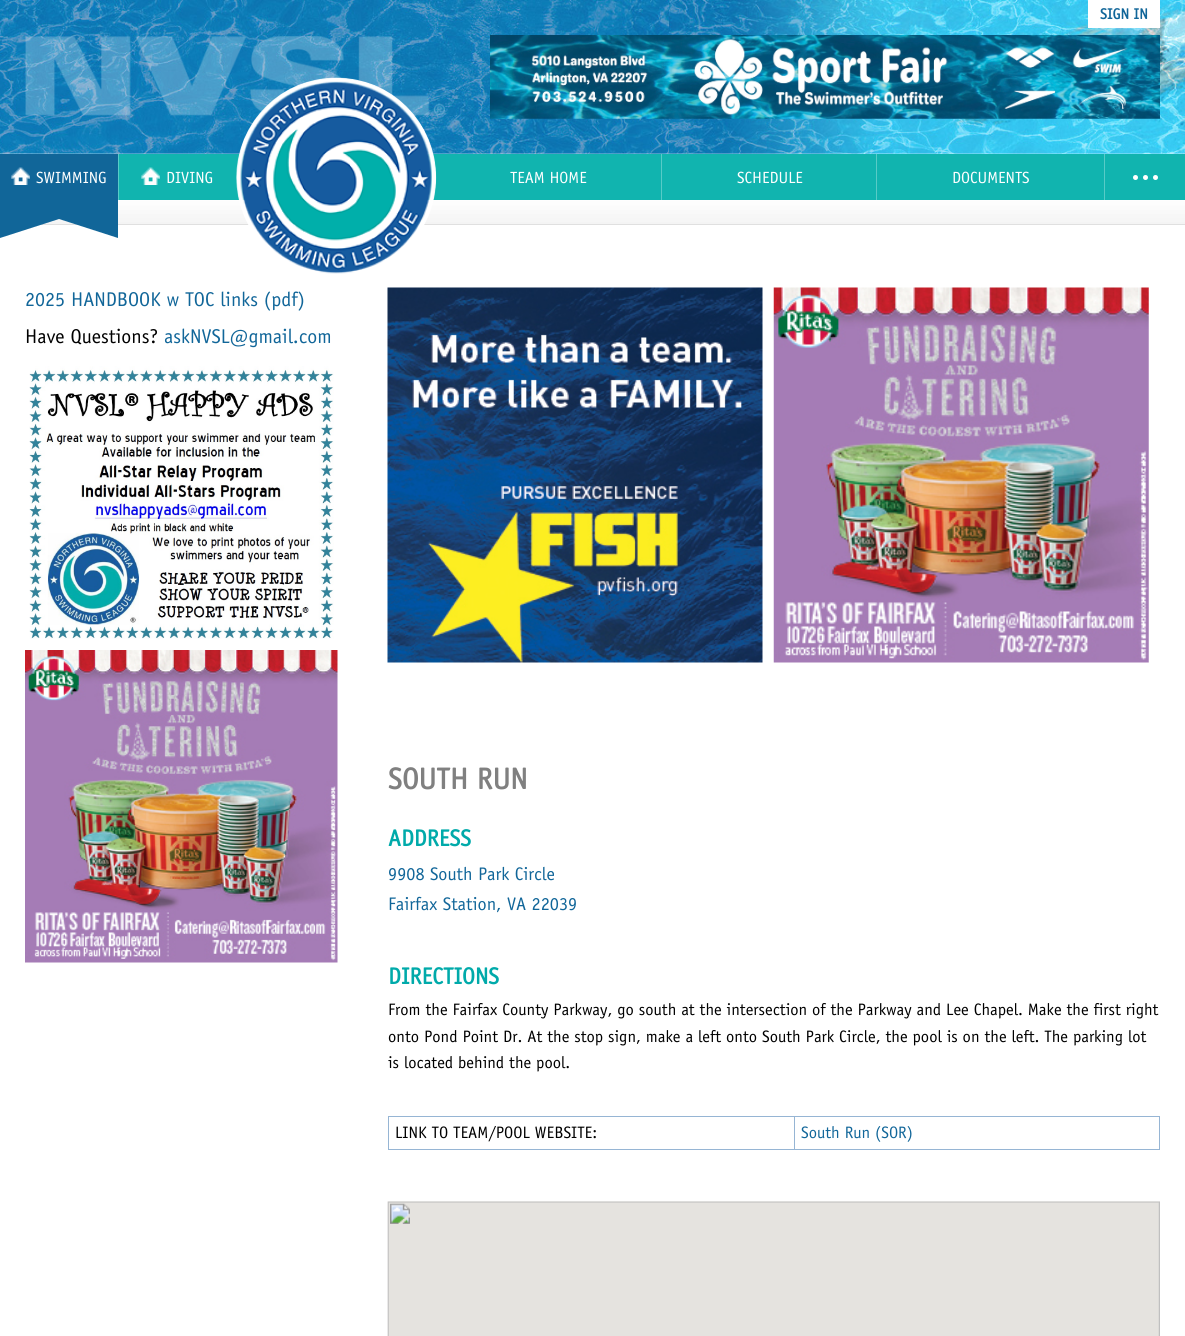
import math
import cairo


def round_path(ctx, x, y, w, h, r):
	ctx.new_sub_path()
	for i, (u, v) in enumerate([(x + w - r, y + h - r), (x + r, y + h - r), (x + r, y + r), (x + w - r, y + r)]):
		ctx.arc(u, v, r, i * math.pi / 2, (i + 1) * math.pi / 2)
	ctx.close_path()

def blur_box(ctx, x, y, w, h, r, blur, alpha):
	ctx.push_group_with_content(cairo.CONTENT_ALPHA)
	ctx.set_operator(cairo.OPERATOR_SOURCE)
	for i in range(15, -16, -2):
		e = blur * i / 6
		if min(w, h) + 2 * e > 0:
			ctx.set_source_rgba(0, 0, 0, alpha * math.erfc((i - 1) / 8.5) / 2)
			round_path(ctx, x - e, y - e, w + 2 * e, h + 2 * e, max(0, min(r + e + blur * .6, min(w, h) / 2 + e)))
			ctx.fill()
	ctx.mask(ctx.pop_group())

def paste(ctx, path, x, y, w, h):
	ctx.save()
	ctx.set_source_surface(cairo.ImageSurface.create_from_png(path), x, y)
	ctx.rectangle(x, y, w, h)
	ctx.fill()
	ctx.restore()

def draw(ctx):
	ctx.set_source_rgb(1, 1, 1)
	ctx.paint()
	paste(ctx, 'media/1.png', 0, 0, 1185, 154)
	ctx.set_source_rgb(1, 1, 1)
	ctx.rectangle(1088, 0, 72, 28)
	ctx.fill()
	ctx.select_font_face('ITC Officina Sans', cairo.FONT_SLANT_NORMAL, cairo.FONT_WEIGHT_BOLD)
	ctx.set_font_size(15)
	ctx.set_source_rgb(0.067, 0.4, 0.6)
	ctx.move_to(1100, 19)
	ctx.show_text('SIGN IN')
	paste(ctx, 'media/2.png', 25, 36, 420, 80)
	paste(ctx, 'media/3.png', 490, 35, 670, 84)
	ctx.save()
	ctx.rectangle(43, 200, 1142, 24)
	ctx.clip()
	ctx.set_source_rgb(0.941, 0.941, 0.941)
	blur_box(ctx, 5, 216, 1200, 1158, 0, 12.5, 1)
	ctx.restore()
	ctx.set_source_rgb(0.067, 0.706, 0.686)
	ctx.rectangle(119, 154, 1066, 46)
	ctx.fill()
	ctx.set_source_rgb(0.345, 0.796, 0.78)
	ctx.rectangle(118, 154, 1, 46)
	ctx.fill()
	ctx.set_source_rgb(0.067, 0.4, 0.6)
	ctx.rectangle(0, 154, 118, 46)
	ctx.fill()
	paste(ctx, 'media/4.png', 11, 167, 19, 18)
	ctx.select_font_face('ITC Officina Sans')
	ctx.set_font_size(16.25)
	ctx.set_source_rgb(1, 1, 1)
	ctx.move_to(36, 183)
	ctx.show_text('SWIMMING')
	ctx.set_source_rgb(0.878, 0.878, 0.878)
	ctx.rectangle(40, 224, 1145, 1)
	ctx.fill()
	ctx.set_source_rgb(0.067, 0.4, 0.6)
	ctx.new_path()
	ctx.move_to(118, 200)
	ctx.line_to(118, 238)
	ctx.line_to(59, 219)
	ctx.line_to(59, 200)
	ctx.close_path()
	ctx.fill()
	ctx.new_path()
	ctx.move_to(0, 238)
	ctx.line_to(0, 200)
	ctx.line_to(59, 200)
	ctx.line_to(59, 219)
	ctx.close_path()
	ctx.fill()
	paste(ctx, 'media/5.png', 141, 167, 19, 18)
	ctx.set_source_rgb(1, 1, 1)
	ctx.move_to(166, 183)
	ctx.show_text('DIVING')
	paste(ctx, 'media/6.png', 236, 77, 201, 197)
	ctx.set_source_rgb(0.345, 0.796, 0.78)
	ctx.rectangle(661, 154, 1, 46)
	ctx.fill()
	ctx.set_source_rgb(1, 1, 1)
	ctx.move_to(510, 183)
	ctx.show_text('TEAM HOME')
	ctx.set_source_rgb(0.345, 0.796, 0.78)
	ctx.rectangle(876, 154, 1, 46)
	ctx.fill()
	ctx.set_source_rgb(1, 1, 1)
	ctx.move_to(737, 183)
	ctx.show_text('SCHEDULE')
	ctx.set_source_rgb(0.345, 0.796, 0.78)
	ctx.rectangle(1104, 154, 1, 46)
	ctx.fill()
	ctx.set_source_rgb(1, 1, 1)
	ctx.move_to(952, 183)
	ctx.show_text('DOCUMENTS')
	ctx.new_path()
	ctx.arc(1135.5, 177.5, 2.5, 0, 2 * math.pi)
	ctx.fill()
	ctx.arc(1145.5, 177.5, 2.5, 0, 2 * math.pi)
	ctx.fill()
	ctx.arc(1155.5, 177.5, 2.5, 0, 2 * math.pi)
	ctx.fill()
	ctx.set_font_size(20)
	ctx.set_source_rgb(0.067, 0.4, 0.6)
	ctx.move_to(25, 306)
	ctx.show_text('2025 HANDBOOK w TOC links (pdf)')
	ctx.set_source_rgb(0, 0, 0)
	ctx.move_to(25, 343)
	ctx.show_text('Have Questions?')
	ctx.set_source_rgb(0.067, 0.4, 0.6)
	ctx.move_to(164, 343)
	ctx.show_text('askNVSL@gmail.com')
	paste(ctx, 'media/7.png', 29, 366, 305, 273)
	paste(ctx, 'media/8.png', 25, 650, 313, 313)
	paste(ctx, 'media/9.png', 387, 287, 376, 376)
	paste(ctx, 'media/10.png', 773, 287, 376, 376)
	ctx.select_font_face('ITC Officina Sans', cairo.FONT_SLANT_NORMAL, cairo.FONT_WEIGHT_BOLD)
	ctx.set_font_size(30)
	ctx.set_source_rgb(0.502, 0.502, 0.502)
	ctx.move_to(388, 789)
	ctx.show_text('SOUTH RUN')
	ctx.set_font_size(23.25)
	ctx.set_source_rgb(0, 0.667, 0.667)
	ctx.move_to(388, 846)
	ctx.show_text('ADDRESS')
	ctx.select_font_face('ITC Officina Sans')
	ctx.set_font_size(18.25)
	ctx.set_source_rgb(0.067, 0.4, 0.6)
	ctx.move_to(388, 880)
	ctx.show_text('9908 South Park Circle')
	ctx.move_to(388, 910)
	ctx.show_text('Fairfax Station, VA 22039')
	ctx.select_font_face('ITC Officina Sans', cairo.FONT_SLANT_NORMAL, cairo.FONT_WEIGHT_BOLD)
	ctx.set_font_size(23.25)
	ctx.set_source_rgb(0, 0.667, 0.667)
	ctx.move_to(388, 984)
	ctx.show_text('DIRECTIONS')
	ctx.select_font_face('ITC Officina Sans')
	ctx.set_font_size(16.6)
	ctx.set_source_rgb(0, 0, 0)
	for x, y, s in [
		(388, 1015, 'From the Fairfax County Parkway, go south at the intersection of the Parkway and Lee Chapel. Make the first right'),
		(388, 1042, 'onto Pond Point Dr. At the stop sign, make a left onto South Park Circle, the pool is on the left. The parking lot'),
		(388, 1068, 'is located behind the pool.'),
	]:
		ctx.move_to(x, y)
		ctx.show_text(s)
	ctx.set_source_rgb(0.588, 0.71, 0.831)
	ctx.rectangle(794, 1116, 366, 1)
	ctx.rectangle(1159, 1116, 1, 34)
	ctx.rectangle(794, 1149, 366, 1)
	ctx.rectangle(794, 1116, 1, 34)
	ctx.rectangle(388, 1116, 407, 1)
	ctx.rectangle(388, 1149, 407, 1)
	ctx.rectangle(388, 1116, 1, 34)
	ctx.fill()
	ctx.set_source_rgb(0, 0, 0)
	ctx.move_to(395, 1138)
	ctx.show_text('LINK TO TEAM/POOL WEBSITE:')
	ctx.set_source_rgb(0.067, 0.4, 0.6)
	ctx.move_to(801, 1138)
	ctx.show_text('South Run (SOR)')
	paste(ctx, 'media/11.png', 387, 1201, 773, 135)


surface = cairo.ImageSurface(cairo.FORMAT_RGB24, 1185, 1336)
ctx = cairo.Context(surface)
options = cairo.FontOptions()
options.set_hint_metrics(cairo.HINT_METRICS_OFF)
options.set_hint_style(cairo.HINT_STYLE_NONE)
ctx.set_font_options(options)
ctx.set_miter_limit(4)
draw(ctx)
surface.write_to_png('image.png')
